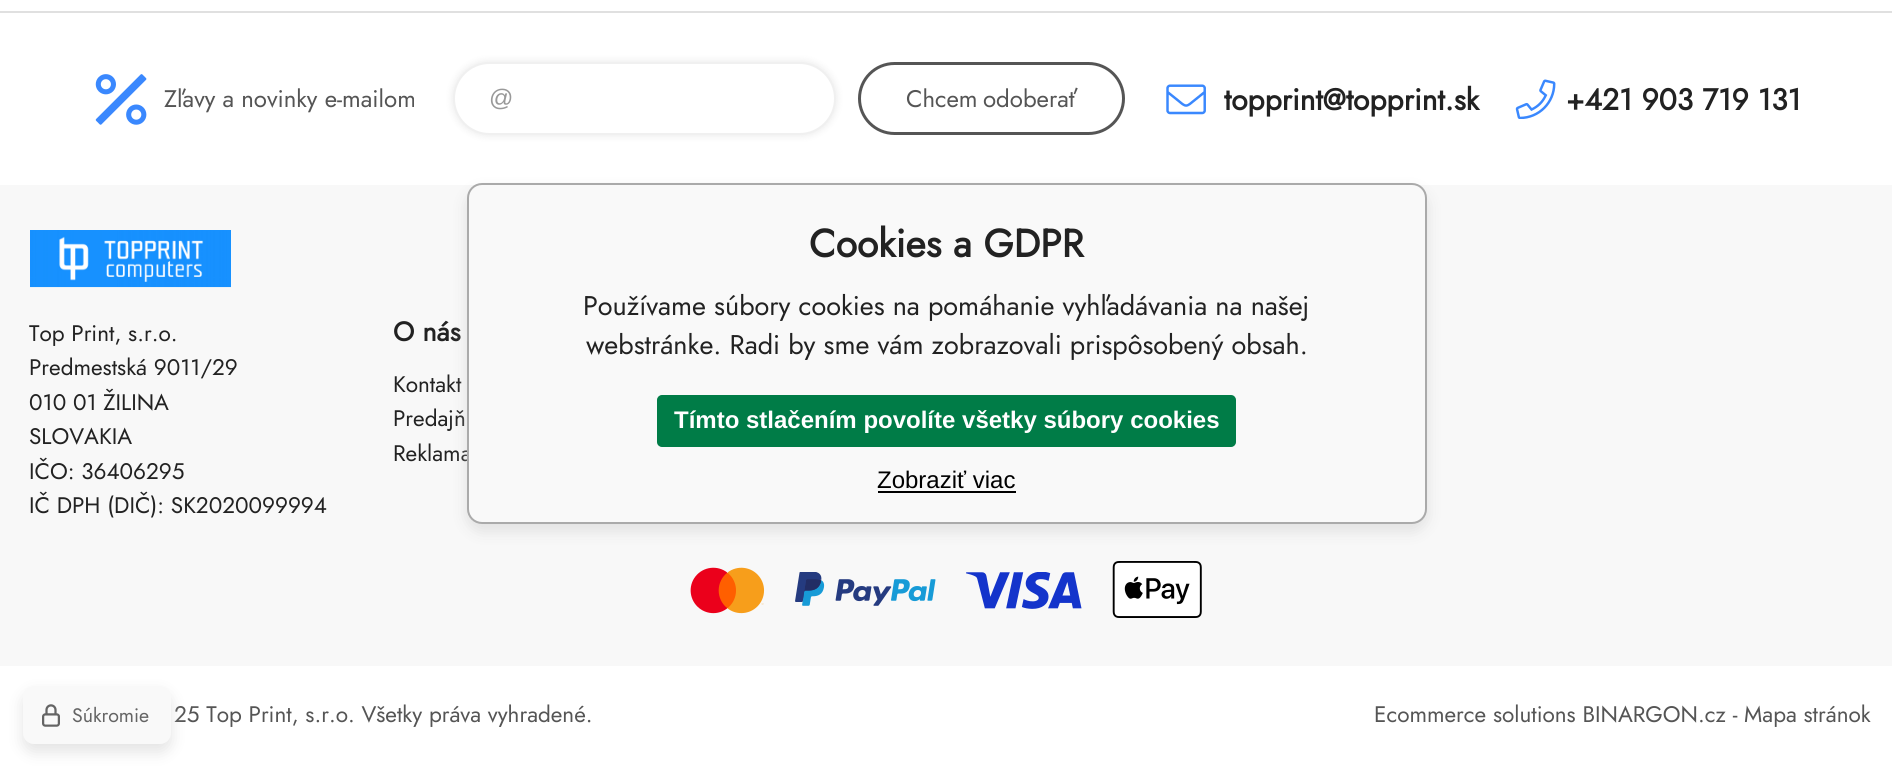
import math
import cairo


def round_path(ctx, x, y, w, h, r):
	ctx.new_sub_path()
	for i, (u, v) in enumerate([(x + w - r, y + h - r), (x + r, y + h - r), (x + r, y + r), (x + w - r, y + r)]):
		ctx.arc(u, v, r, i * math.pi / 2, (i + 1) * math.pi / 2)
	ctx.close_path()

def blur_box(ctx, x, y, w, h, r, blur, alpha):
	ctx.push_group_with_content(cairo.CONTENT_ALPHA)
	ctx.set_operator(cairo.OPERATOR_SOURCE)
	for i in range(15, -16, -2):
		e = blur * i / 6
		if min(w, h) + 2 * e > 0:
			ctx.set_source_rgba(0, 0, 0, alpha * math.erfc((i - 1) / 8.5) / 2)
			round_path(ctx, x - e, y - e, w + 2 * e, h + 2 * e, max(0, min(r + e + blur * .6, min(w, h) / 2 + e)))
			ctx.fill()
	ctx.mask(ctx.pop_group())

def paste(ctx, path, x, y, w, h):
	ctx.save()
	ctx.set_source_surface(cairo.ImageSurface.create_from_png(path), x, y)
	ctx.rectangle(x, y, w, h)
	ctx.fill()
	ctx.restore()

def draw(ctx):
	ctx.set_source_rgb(1, 1, 1)
	ctx.paint()
	ctx.set_source_rgb(0.878, 0.878, 0.878)
	ctx.rectangle(0, 11, 1892, 2)
	ctx.fill()
	paste(ctx, 'media/1.png', 95, 74, 52, 51)
	ctx.select_font_face('Jost')
	ctx.set_font_size(24)
	ctx.set_source_rgb(0.333, 0.333, 0.333)
	ctx.move_to(164, 107)
	ctx.show_text('Zľavy a novinky e-mailom')
	ctx.set_source_rgb(0, 0, 0)
	blur_box(ctx, 453, 62, 383, 73, 36.5, 4, 0.1)
	ctx.set_source_rgb(1, 1, 1)
	round_path(ctx, 454, 63, 381, 71, 35.5)
	ctx.fill_preserve()
	ctx.set_source_rgb(0.941, 0.941, 0.941)
	ctx.stroke()
	ctx.select_font_face('Liberation Sans')
	ctx.set_source_rgb(0.6, 0.6, 0.6)
	ctx.move_to(489, 106)
	ctx.show_text('@')
	round_path(ctx, 859.5, 63.5, 264, 70, 35)
	ctx.set_source_rgb(0.333, 0.333, 0.333)
	ctx.set_line_width(3)
	ctx.stroke()
	ctx.select_font_face('Jost')
	ctx.move_to(906, 107)
	ctx.show_text('Chcem')
	ctx.move_to(983, 107)
	ctx.show_text('odoberať')
	paste(ctx, 'media/2.png', 1166, 84, 40, 31)
	ctx.select_font_face('Jost', cairo.FONT_SLANT_NORMAL, cairo.FONT_WEIGHT_BOLD)
	ctx.set_font_size(30)
	ctx.set_source_rgb(0.133, 0.133, 0.133)
	ctx.move_to(1224, 110)
	ctx.show_text('topprint@topprint.sk')
	paste(ctx, 'media/3.png', 1515, 79, 41, 40)
	ctx.move_to(1566, 110)
	ctx.show_text('+421 903 719 131')
	ctx.set_source_rgb(0.969, 0.969, 0.969)
	ctx.rectangle(0, 185, 1892, 481)
	ctx.fill()
	paste(ctx, 'media/4.png', 30, 230, 201, 58)
	ctx.select_font_face('Jost')
	ctx.set_font_size(22.5)
	ctx.set_source_rgb(0.133, 0.133, 0.133)
	for x, y, s in [
		(29, 341, 'Top Print, s.r.o.'),
		(29, 375, 'Predmestská 9011/29'),
		(29, 410, '010 01 ŽILINA'),
		(29, 444, 'SLOVAKIA'),
		(29, 479, 'IČO: 36406295'),
		(29, 513, 'IČ DPH (DIČ): SK2020099994'),
	]:
		ctx.move_to(x, y)
		ctx.show_text(s)
	ctx.select_font_face('Jost', cairo.FONT_SLANT_NORMAL, cairo.FONT_WEIGHT_BOLD)
	ctx.set_font_size(27)
	ctx.move_to(393, 341)
	ctx.show_text('O nás')
	ctx.select_font_face('Jost')
	ctx.set_font_size(22.5)
	for x, y, s in [
		(393, 392, 'Kontakt'),
		(393, 426, 'Predajň'),
		(393, 461, 'Reklama'),
	]:
		ctx.move_to(x, y)
		ctx.show_text(s)
	paste(ctx, 'media/5.png', 690, 567, 75, 47)
	paste(ctx, 'media/6.png', 795, 572, 141, 34)
	paste(ctx, 'media/7.png', 966, 572, 116, 37)
	paste(ctx, 'media/8.png', 1112, 561, 90, 57)
	ctx.set_source_rgb(0.333, 0.333, 0.333)
	ctx.move_to(174, 722)
	ctx.show_text('25 Top Print, s.r.o. Všetky práva vyhradené.')
	ctx.move_to(1374, 722)
	ctx.show_text('Ecommerce solutions BINARGON.cz - Mapa stránok')
	ctx.set_source_rgb(0.784, 0.784, 0.784)
	blur_box(ctx, 467, 191, 960, 340, 15, 7.5, 0.5)
	ctx.set_source_rgb(0.973, 0.973, 0.973)
	round_path(ctx, 468, 184, 958, 339, 14)
	ctx.fill_preserve()
	ctx.set_source_rgb(0.667, 0.667, 0.667)
	ctx.set_line_width(2)
	ctx.stroke()
	ctx.select_font_face('Jost', cairo.FONT_SLANT_NORMAL, cairo.FONT_WEIGHT_BOLD)
	ctx.set_font_size(39)
	ctx.set_source_rgb(0.133, 0.133, 0.133)
	ctx.move_to(809, 257)
	ctx.show_text('Cookies a GDPR')
	ctx.select_font_face('Jost')
	ctx.set_font_size(27)
	ctx.move_to(583, 315)
	ctx.show_text('Používame súbory cookies na pomáhanie vyhľadávania na našej')
	ctx.move_to(586, 354)
	ctx.show_text('webstránke. Radi by sme vám zobrazovali prispôsobený obsah.')
	ctx.set_source_rgb(0, 0.486, 0.278)
	round_path(ctx, 658, 396, 577, 50, 4)
	ctx.fill_preserve()
	ctx.stroke()
	ctx.select_font_face('Liberation Sans', cairo.FONT_SLANT_NORMAL, cairo.FONT_WEIGHT_BOLD)
	ctx.set_font_size(24)
	ctx.set_source_rgb(1, 1, 1)
	ctx.move_to(674, 428)
	ctx.show_text('Tímto stlačením povolíte všetky súbory cookies')
	ctx.select_font_face('Liberation Sans')
	ctx.set_source_rgb(0, 0, 0)
	ctx.move_to(877, 488)
	ctx.show_text('Zobraziť viac')
	ctx.rectangle(878, 491, 138, 2)
	ctx.fill()
	ctx.set_source_rgb(0.784, 0.784, 0.784)
	blur_box(ctx, 23, 693, 148, 59, 11, 7.5, 0.5)
	ctx.set_source_rgb(0.973, 0.973, 0.973)
	round_path(ctx, 23, 686, 148, 58, 11)
	ctx.fill()
	paste(ctx, 'media/9.png', 42, 704, 18, 23)
	ctx.select_font_face('Jost')
	ctx.set_font_size(19.5)
	ctx.set_source_rgb(0.392, 0.392, 0.392)
	ctx.move_to(72, 722)
	ctx.show_text('Súkromie')


surface = cairo.ImageSurface(cairo.FORMAT_RGB24, 1892, 766)
ctx = cairo.Context(surface)
options = cairo.FontOptions()
options.set_hint_metrics(cairo.HINT_METRICS_OFF)
options.set_hint_style(cairo.HINT_STYLE_NONE)
ctx.set_font_options(options)
ctx.set_miter_limit(4)
draw(ctx)
surface.write_to_png('image.png')
